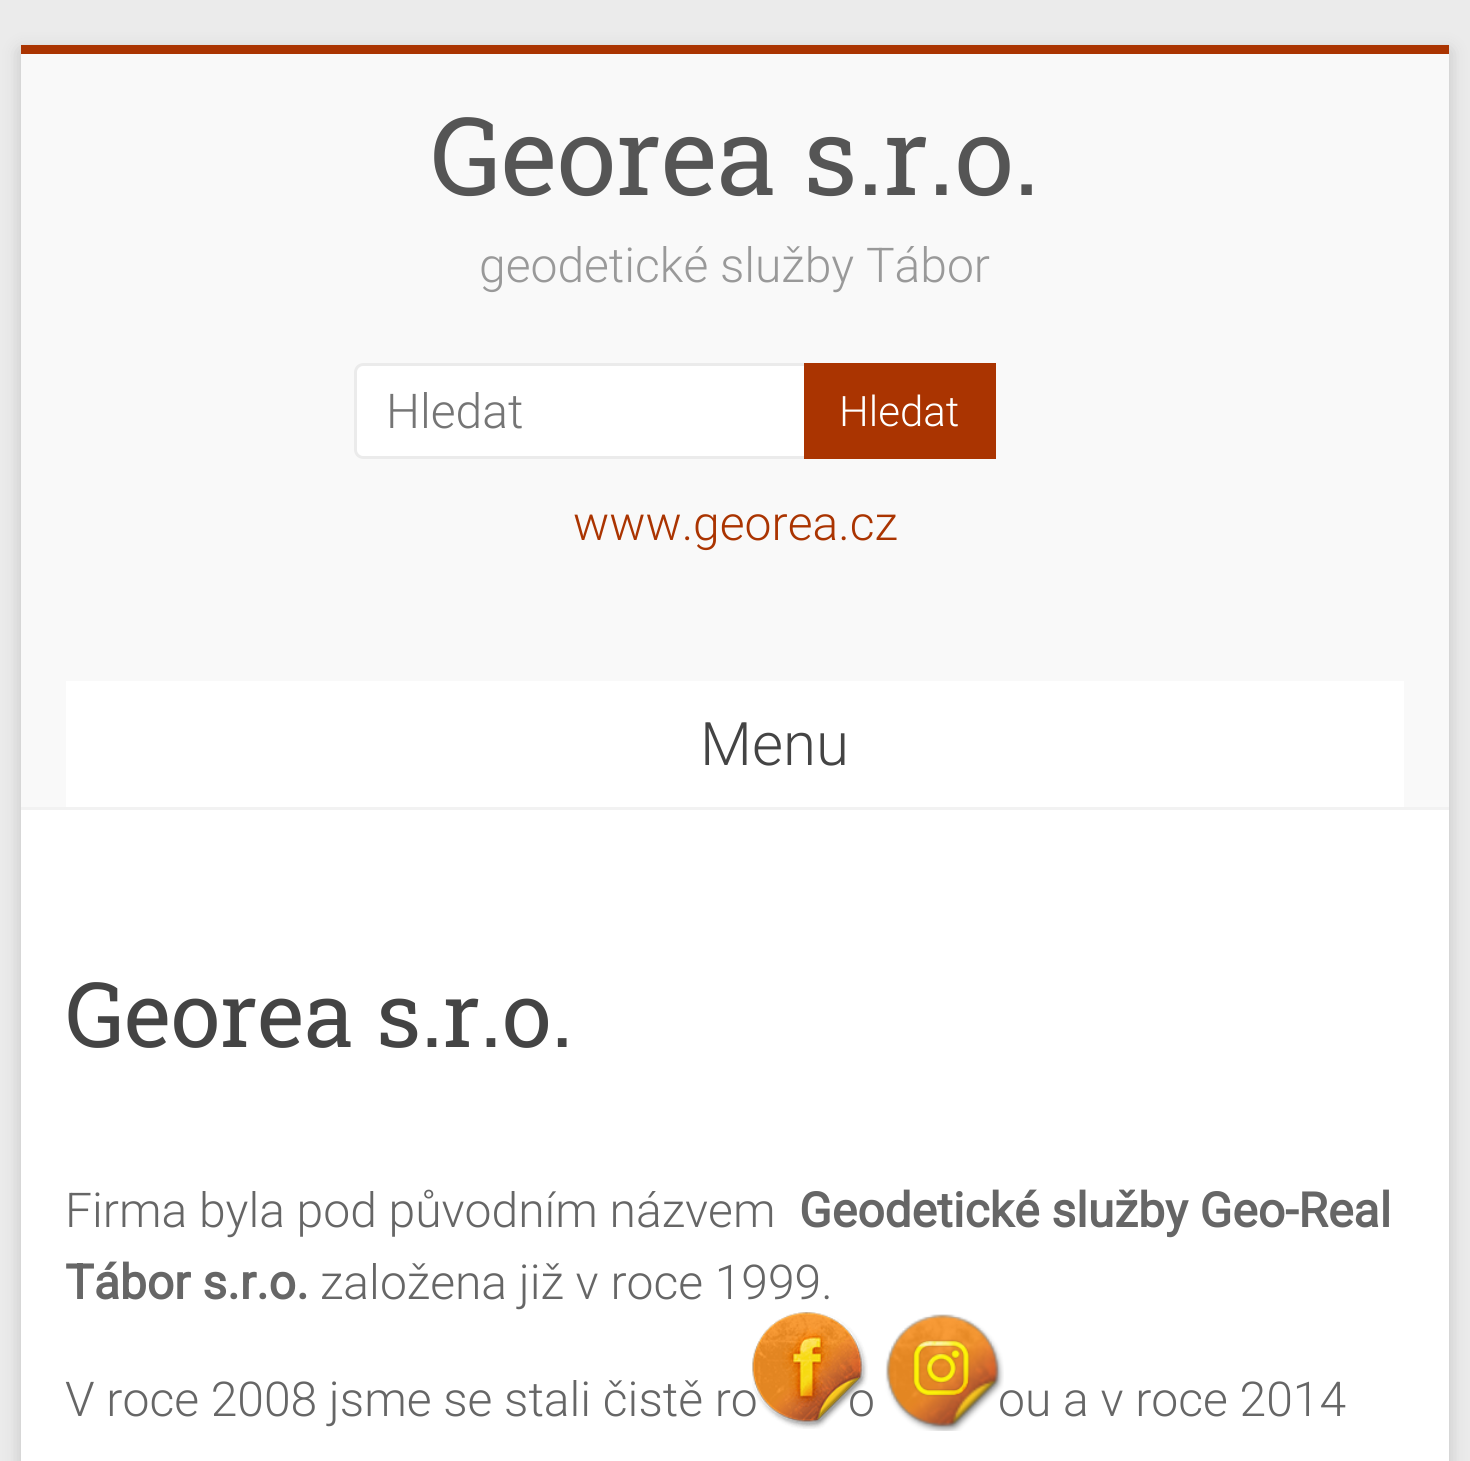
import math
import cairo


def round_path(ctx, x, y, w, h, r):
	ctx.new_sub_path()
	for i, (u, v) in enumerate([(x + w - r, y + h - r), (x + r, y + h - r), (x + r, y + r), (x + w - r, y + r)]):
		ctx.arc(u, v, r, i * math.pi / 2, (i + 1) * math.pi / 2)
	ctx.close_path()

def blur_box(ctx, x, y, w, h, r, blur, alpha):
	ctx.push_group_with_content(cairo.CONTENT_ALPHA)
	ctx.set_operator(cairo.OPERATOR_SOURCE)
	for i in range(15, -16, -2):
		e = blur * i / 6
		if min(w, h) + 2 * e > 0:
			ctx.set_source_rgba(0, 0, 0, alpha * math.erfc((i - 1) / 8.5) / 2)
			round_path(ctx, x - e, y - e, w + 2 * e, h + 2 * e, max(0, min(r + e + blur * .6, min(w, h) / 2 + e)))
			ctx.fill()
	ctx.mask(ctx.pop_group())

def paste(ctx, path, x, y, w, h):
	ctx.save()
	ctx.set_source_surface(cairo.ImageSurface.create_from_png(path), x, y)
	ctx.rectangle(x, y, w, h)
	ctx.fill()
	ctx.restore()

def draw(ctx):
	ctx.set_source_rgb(0.918, 0.918, 0.918)
	ctx.paint()
	ctx.set_source_rgb(0.392, 0.392, 0.392)
	blur_box(ctx, 21, 51, 1428, 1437, 0, 9, 0.3)
	ctx.set_source_rgb(1, 1, 1)
	ctx.rectangle(21, 810, 1428, 651)
	ctx.fill()
	ctx.set_source_rgb(0.667, 0.204, 0.004)
	ctx.rectangle(21, 45, 1428, 9)
	ctx.fill()
	ctx.set_source_rgb(0.973, 0.973, 0.973)
	ctx.rectangle(21, 54, 1428, 753)
	ctx.fill()
	ctx.set_source_rgb(0.949, 0.949, 0.949)
	ctx.rectangle(21, 807, 1428, 3)
	ctx.fill()
	ctx.select_font_face('Roboto Slab')
	ctx.set_font_size(108)
	ctx.set_source_rgb(0.333, 0.333, 0.333)
	ctx.move_to(430, 195)
	ctx.show_text('Georea s.r.o.')
	ctx.select_font_face('Roboto Light')
	ctx.set_font_size(48)
	ctx.set_source_rgb(0.6, 0.6, 0.6)
	ctx.move_to(479, 282)
	ctx.show_text('geodetické služby Tábor')
	ctx.set_source_rgb(1, 1, 1)
	ctx.new_path()
	ctx.move_to(363, 363)
	ctx.line_to(804, 363)
	ctx.line_to(804, 459)
	ctx.line_to(363, 459)
	ctx.curve_to(358, 459, 354, 455, 354, 450)
	ctx.line_to(354, 372)
	ctx.curve_to(354, 367, 358, 363, 363, 363)
	ctx.close_path()
	ctx.fill()
	ctx.set_source_rgb(0.918, 0.918, 0.918)
	ctx.set_fill_rule(cairo.FILL_RULE_EVEN_ODD)
	ctx.new_path()
	ctx.move_to(363, 363)
	ctx.line_to(804, 363)
	ctx.line_to(804, 459)
	ctx.line_to(363, 459)
	ctx.curve_to(358, 459, 354, 455, 354, 450)
	ctx.line_to(354, 372)
	ctx.curve_to(354, 367, 358, 363, 363, 363)
	ctx.close_path()
	ctx.move_to(363, 366)
	ctx.line_to(804, 366)
	ctx.line_to(804, 456)
	ctx.line_to(363, 456)
	ctx.curve_to(360, 456, 357, 453, 357, 450)
	ctx.line_to(357, 372)
	ctx.curve_to(357, 369, 360, 366, 363, 366)
	ctx.close_path()
	ctx.fill()
	ctx.set_source_rgb(0.459, 0.459, 0.459)
	ctx.move_to(386, 428)
	ctx.show_text('Hledat')
	ctx.set_source_rgb(0.667, 0.204, 0.004)
	ctx.rectangle(804, 363, 192, 96)
	ctx.fill()
	ctx.set_font_size(42)
	ctx.set_source_rgb(1, 1, 1)
	ctx.move_to(839, 426)
	ctx.show_text('Hledat')
	ctx.set_font_size(48)
	ctx.set_source_rgb(0.667, 0.204, 0.004)
	ctx.move_to(573, 540)
	ctx.show_text('www.georea.cz')
	ctx.set_source_rgb(1, 1, 1)
	ctx.rectangle(66, 681, 1338, 126)
	ctx.fill()
	ctx.set_font_size(60)
	ctx.set_source_rgb(0.267, 0.267, 0.267)
	ctx.move_to(700, 765)
	ctx.show_text('Menu')
	ctx.select_font_face('Roboto Slab')
	ctx.set_font_size(90)
	ctx.move_to(65, 1047)
	ctx.show_text('Georea s.r.o.')
	ctx.select_font_face('Roboto Light')
	ctx.set_font_size(48)
	ctx.set_source_rgb(0.4, 0.4, 0.4)
	ctx.move_to(65, 1227)
	ctx.show_text('Firma byla pod původním názvem')
	ctx.select_font_face('Roboto', cairo.FONT_SLANT_NORMAL, cairo.FONT_WEIGHT_BOLD)
	ctx.move_to(799, 1227)
	ctx.show_text('Geodetické služby Geo-Real')
	ctx.move_to(65, 1299)
	ctx.show_text('Tábor s.r.o.')
	ctx.select_font_face('Roboto Light')
	for x, y, s in [
		(320, 1299, 'založena již v roce 1999.'),
		(65, 1416, 'V roce 2008 jsme se stali čistě ro'),
		(848, 1416, 'o'),
		(998, 1416, 'ou a v roce 2014'),
	]:
		ctx.move_to(x, y)
		ctx.show_text(s)
	paste(ctx, 'media/1.png', 752, 1312, 116, 117)
	paste(ctx, 'media/2.png', 885, 1314, 119, 117)


surface = cairo.ImageSurface(cairo.FORMAT_RGB24, 1470, 1461)
ctx = cairo.Context(surface)
options = cairo.FontOptions()
options.set_hint_metrics(cairo.HINT_METRICS_OFF)
options.set_hint_style(cairo.HINT_STYLE_NONE)
ctx.set_font_options(options)
ctx.set_miter_limit(4)
draw(ctx)
surface.write_to_png('image.png')
